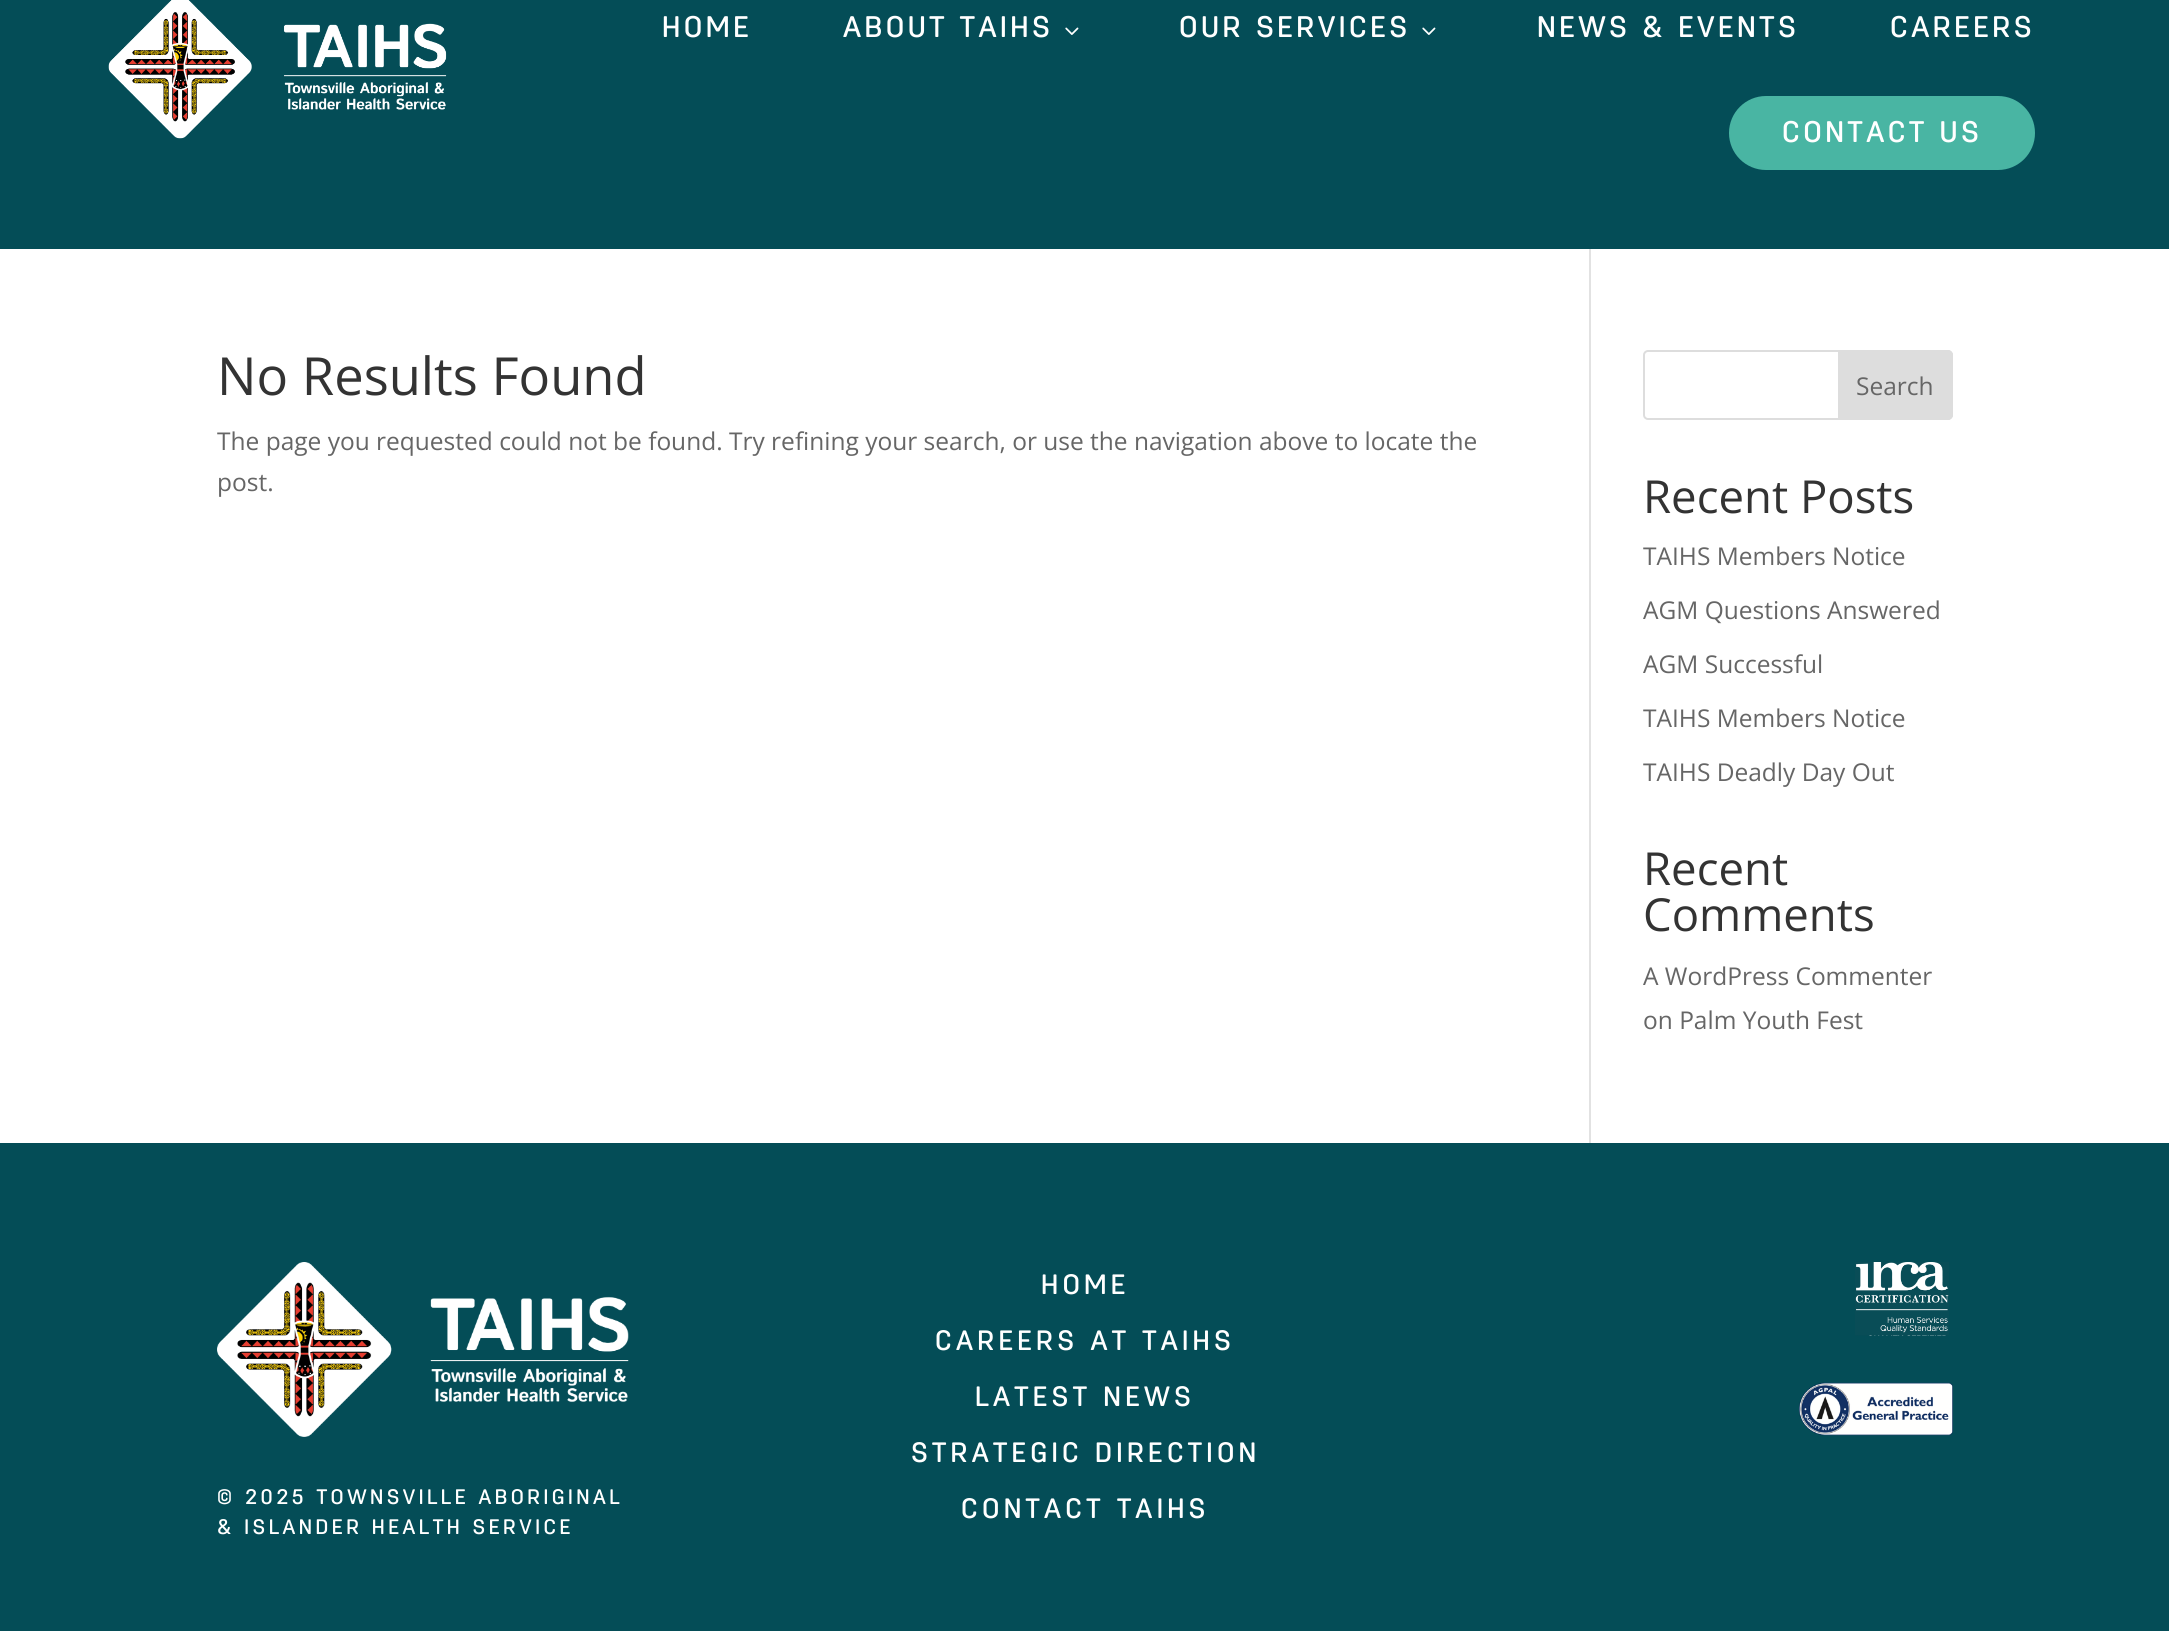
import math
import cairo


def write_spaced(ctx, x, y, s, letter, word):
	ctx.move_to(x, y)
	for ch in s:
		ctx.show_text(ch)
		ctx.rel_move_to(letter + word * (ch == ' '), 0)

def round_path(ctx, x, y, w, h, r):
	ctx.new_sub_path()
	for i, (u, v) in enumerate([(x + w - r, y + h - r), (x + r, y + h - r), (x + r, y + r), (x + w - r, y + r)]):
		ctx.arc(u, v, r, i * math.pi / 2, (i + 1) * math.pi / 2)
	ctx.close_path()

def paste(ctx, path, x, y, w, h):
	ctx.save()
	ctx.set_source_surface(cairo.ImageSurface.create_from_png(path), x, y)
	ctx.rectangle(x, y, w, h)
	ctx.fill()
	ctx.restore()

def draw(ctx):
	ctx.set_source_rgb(1, 1, 1)
	ctx.paint()
	ctx.set_source_rgb(0.016, 0.302, 0.341)
	ctx.rectangle(0, 0, 2169, 249)
	ctx.fill()
	paste(ctx, 'media/1.png', 108, 0, 339, 139)
	ctx.select_font_face('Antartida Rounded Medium')
	ctx.set_font_size(29.75)
	ctx.set_source_rgb(1, 1, 1)
	write_spaced(ctx, 662, 37, 'HOME', 3.5, 0)
	write_spaced(ctx, 843, 37, 'ABOUT TAIHS', 3.5, 0)
	paste(ctx, 'media/2.png', 1065, 27, 14, 8)
	write_spaced(ctx, 1179, 37, 'OUR SERVICES', 3.5, 0)
	paste(ctx, 'media/2.png', 1422, 27, 14, 8)
	write_spaced(ctx, 1537, 37, 'NEWS & EVENTS', 3.5, 0)
	write_spaced(ctx, 1890, 37, 'CAREERS', 3.5, 0)
	ctx.set_source_rgb(0.286, 0.71, 0.639)
	round_path(ctx, 1729, 96, 306, 74, 37)
	ctx.fill()
	ctx.set_source_rgb(1, 1, 1)
	write_spaced(ctx, 1782, 142, 'CONTACT US', 3.5, 0)
	ctx.set_source_rgb(0.886, 0.886, 0.886)
	ctx.rectangle(1589, 249, 2, 894)
	ctx.fill()
	ctx.select_font_face('Open Sans')
	ctx.set_font_size(52.5)
	ctx.set_source_rgb(0.2, 0.2, 0.2)
	ctx.move_to(217, 395)
	ctx.show_text('No Results Found')
	ctx.set_font_size(24.5)
	ctx.set_source_rgb(0.4, 0.4, 0.4)
	ctx.move_to(217, 450)
	ctx.show_text('The page you requested could not be found. Try refining your search, or use the navigation above to locate the')
	ctx.move_to(217, 491)
	ctx.show_text('post.')
	round_path(ctx, 1644, 351, 308, 68, 4)
	ctx.set_source_rgb(0.867, 0.867, 0.867)
	ctx.stroke()
	ctx.new_path()
	ctx.move_to(1839, 351)
	ctx.line_to(1948, 351)
	ctx.curve_to(1950, 351, 1952, 353, 1952, 355)
	ctx.line_to(1952, 415)
	ctx.curve_to(1952, 417, 1950, 419, 1948, 419)
	ctx.line_to(1839, 419)
	ctx.close_path()
	ctx.fill_preserve()
	ctx.stroke()
	ctx.set_source_rgb(0.4, 0.4, 0.4)
	ctx.move_to(1856, 395)
	ctx.show_text('Search')
	ctx.set_font_size(45.5)
	ctx.set_source_rgb(0.2, 0.2, 0.2)
	ctx.move_to(1643, 513)
	ctx.show_text('Recent Posts')
	ctx.set_font_size(24.5)
	ctx.set_source_rgb(0.4, 0.4, 0.4)
	for x, y, s in [
		(1643, 565, 'TAIHS Members Notice'),
		(1643, 619, 'AGM Questions Answered'),
		(1643, 673, 'AGM Successful'),
		(1643, 727, 'TAIHS Members Notice'),
		(1643, 781, 'TAIHS Deadly Day Out'),
	]:
		ctx.move_to(x, y)
		ctx.show_text(s)
	ctx.set_font_size(45.5)
	ctx.set_source_rgb(0.2, 0.2, 0.2)
	ctx.move_to(1643, 885)
	ctx.show_text('Recent')
	ctx.move_to(1643, 931)
	ctx.show_text('Comments')
	ctx.set_font_size(24.5)
	ctx.set_source_rgb(0.4, 0.4, 0.4)
	ctx.move_to(1643, 985)
	ctx.show_text('A WordPress Commenter')
	ctx.move_to(1643, 1029)
	ctx.show_text('on Palm Youth Fest')
	ctx.set_source_rgb(0.016, 0.302, 0.341)
	ctx.rectangle(0, 1143, 2169, 488)
	ctx.fill()
	paste(ctx, 'media/3.png', 217, 1262, 412, 175)
	ctx.select_font_face('Antartida Rounded Medium')
	ctx.set_font_size(21)
	ctx.set_source_rgb(1, 1, 1)
	write_spaced(ctx, 217, 1504, '© 2025 TOWNSVILLE ABORIGINAL', 3.5, 0)
	write_spaced(ctx, 217, 1534, '& ISLANDER HEALTH SERVICE', 3.5, 0)
	ctx.set_font_size(28)
	for x, y, s in [
		(1041, 1294, 'HOME'),
		(935, 1350, 'CAREERS AT TAIHS'),
		(975, 1406, 'LATEST NEWS'),
		(911, 1462, 'STRATEGIC DIRECTION'),
		(961, 1518, 'CONTACT TAIHS'),
	]:
		write_spaced(ctx, x, y, s, 4.25, 0)
	paste(ctx, 'media/4.png', 1855, 1262, 94, 74)
	paste(ctx, 'media/5.png', 1799, 1382, 154, 54)


surface = cairo.ImageSurface(cairo.FORMAT_RGB24, 2169, 1631)
ctx = cairo.Context(surface)
options = cairo.FontOptions()
options.set_hint_metrics(cairo.HINT_METRICS_OFF)
options.set_hint_style(cairo.HINT_STYLE_NONE)
ctx.set_font_options(options)
ctx.set_miter_limit(4)
draw(ctx)
surface.write_to_png('image.png')
